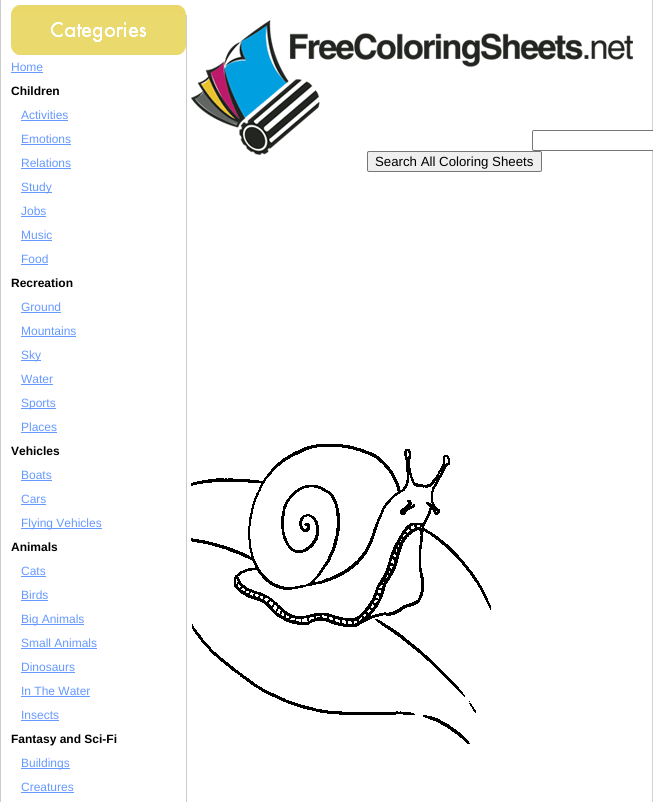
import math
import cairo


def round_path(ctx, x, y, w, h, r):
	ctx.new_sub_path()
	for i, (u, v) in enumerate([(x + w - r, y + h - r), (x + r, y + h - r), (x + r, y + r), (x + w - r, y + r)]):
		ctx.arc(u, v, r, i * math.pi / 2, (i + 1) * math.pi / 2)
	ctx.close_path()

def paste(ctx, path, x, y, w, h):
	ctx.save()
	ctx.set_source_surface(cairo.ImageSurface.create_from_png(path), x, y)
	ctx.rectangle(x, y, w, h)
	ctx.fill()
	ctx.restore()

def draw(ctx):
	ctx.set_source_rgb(1, 1, 1)
	ctx.paint()
	ctx.set_source_rgb(0.82, 0.82, 0.82)
	ctx.rectangle(652, 0, 1, 802)
	ctx.fill()
	ctx.set_source_rgb(0.8, 0.8, 0.8)
	ctx.rectangle(0, 0, 1, 802)
	ctx.fill()
	paste(ctx, 'media/1.png', 11, 5, 175, 50)
	ctx.select_font_face('Liberation Sans')
	ctx.set_font_size(12)
	ctx.set_source_rgb(0.4, 0.6, 1)
	ctx.move_to(11, 71)
	ctx.show_text('Home')
	ctx.rectangle(11, 72, 32, 1)
	ctx.fill()
	ctx.select_font_face('Liberation Sans', cairo.FONT_SLANT_NORMAL, cairo.FONT_WEIGHT_BOLD)
	ctx.set_source_rgb(0, 0, 0)
	ctx.move_to(11, 95)
	ctx.show_text('Children')
	ctx.select_font_face('Liberation Sans')
	ctx.set_source_rgb(0.4, 0.6, 1)
	ctx.move_to(21, 119)
	ctx.show_text('Activities')
	ctx.rectangle(21, 120, 47, 1)
	ctx.fill()
	ctx.move_to(21, 143)
	ctx.show_text('Emotions')
	ctx.rectangle(21, 144, 50, 1)
	ctx.fill()
	ctx.move_to(21, 167)
	ctx.show_text('Relations')
	ctx.rectangle(21, 168, 50, 1)
	ctx.fill()
	ctx.rectangle(21, 192, 31, 1)
	ctx.fill()
	ctx.move_to(21, 191)
	ctx.show_text('Study')
	ctx.move_to(21, 215)
	ctx.show_text('Jobs')
	ctx.rectangle(21, 216, 25, 1)
	ctx.fill()
	ctx.move_to(21, 239)
	ctx.show_text('Music')
	ctx.rectangle(21, 240, 31, 1)
	ctx.fill()
	ctx.move_to(21, 263)
	ctx.show_text('Food')
	ctx.rectangle(21, 264, 27, 1)
	ctx.fill()
	ctx.select_font_face('Liberation Sans', cairo.FONT_SLANT_NORMAL, cairo.FONT_WEIGHT_BOLD)
	ctx.set_source_rgb(0, 0, 0)
	ctx.move_to(11, 287)
	ctx.show_text('Recreation')
	ctx.select_font_face('Liberation Sans')
	ctx.set_source_rgb(0.4, 0.6, 1)
	ctx.move_to(21, 311)
	ctx.show_text('Ground')
	ctx.rectangle(21, 312, 40, 1)
	ctx.fill()
	ctx.move_to(21, 335)
	ctx.show_text('Mountains')
	ctx.rectangle(21, 336, 55, 1)
	ctx.fill()
	ctx.rectangle(21, 360, 20, 1)
	ctx.fill()
	ctx.move_to(21, 359)
	ctx.show_text('Sky')
	ctx.move_to(21, 383)
	ctx.show_text('Water')
	ctx.rectangle(21, 384, 32, 1)
	ctx.fill()
	ctx.rectangle(21, 408, 35, 1)
	ctx.fill()
	ctx.move_to(21, 407)
	ctx.show_text('Sports')
	ctx.move_to(21, 431)
	ctx.show_text('Places')
	ctx.rectangle(21, 432, 36, 1)
	ctx.fill()
	ctx.select_font_face('Liberation Sans', cairo.FONT_SLANT_NORMAL, cairo.FONT_WEIGHT_BOLD)
	ctx.set_source_rgb(0, 0, 0)
	ctx.move_to(11, 455)
	ctx.show_text('Vehicles')
	ctx.select_font_face('Liberation Sans')
	ctx.set_source_rgb(0.4, 0.6, 1)
	ctx.move_to(21, 479)
	ctx.show_text('Boats')
	ctx.rectangle(21, 480, 31, 1)
	ctx.fill()
	ctx.move_to(21, 503)
	ctx.show_text('Cars')
	ctx.rectangle(21, 504, 25, 1)
	ctx.fill()
	ctx.rectangle(21, 528, 81, 1)
	ctx.fill()
	ctx.move_to(21, 527)
	ctx.show_text('Flying Vehicles')
	ctx.select_font_face('Liberation Sans', cairo.FONT_SLANT_NORMAL, cairo.FONT_WEIGHT_BOLD)
	ctx.set_source_rgb(0, 0, 0)
	ctx.move_to(11, 551)
	ctx.show_text('Animals')
	ctx.select_font_face('Liberation Sans')
	ctx.set_source_rgb(0.4, 0.6, 1)
	ctx.move_to(21, 575)
	ctx.show_text('Cats')
	ctx.rectangle(21, 576, 25, 1)
	ctx.fill()
	ctx.move_to(21, 599)
	ctx.show_text('Birds')
	ctx.rectangle(21, 600, 27, 1)
	ctx.fill()
	ctx.rectangle(21, 624, 63, 1)
	ctx.fill()
	ctx.move_to(21, 623)
	ctx.show_text('Big Animals')
	ctx.move_to(21, 647)
	ctx.show_text('Small Animals')
	ctx.rectangle(21, 648, 76, 1)
	ctx.fill()
	ctx.move_to(21, 671)
	ctx.show_text('Dinosaurs')
	ctx.rectangle(21, 672, 54, 1)
	ctx.fill()
	ctx.move_to(21, 695)
	ctx.show_text('In The Water')
	ctx.rectangle(21, 696, 69, 1)
	ctx.fill()
	ctx.move_to(21, 719)
	ctx.show_text('Insects')
	ctx.rectangle(21, 720, 38, 1)
	ctx.fill()
	ctx.select_font_face('Liberation Sans', cairo.FONT_SLANT_NORMAL, cairo.FONT_WEIGHT_BOLD)
	ctx.set_source_rgb(0, 0, 0)
	ctx.move_to(11, 743)
	ctx.show_text('Fantasy and Sci-Fi')
	ctx.set_source_rgb(0.4, 0.6, 1)
	ctx.rectangle(21, 768, 49, 1)
	ctx.fill()
	ctx.select_font_face('Liberation Sans')
	ctx.move_to(21, 767)
	ctx.show_text('Buildings')
	ctx.move_to(21, 791)
	ctx.show_text('Creatures')
	ctx.rectangle(21, 792, 53, 1)
	ctx.fill()
	ctx.set_source_rgb(0.8, 0.8, 0.8)
	ctx.rectangle(186, 15, 1, 787)
	ctx.fill()
	paste(ctx, 'media/2.png', 191, 20, 442, 136)
	ctx.set_source_rgb(1, 1, 1)
	round_path(ctx, 532.5, 130.5, 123, 20, 1.5)
	ctx.fill_preserve()
	ctx.set_source_rgb(0.463, 0.463, 0.463)
	ctx.set_line_width(1)
	ctx.stroke()
	ctx.set_source_rgb(0.937, 0.937, 0.937)
	round_path(ctx, 367.5, 151.5, 174, 20, 1.5)
	ctx.fill_preserve()
	ctx.set_source_rgb(0.463, 0.463, 0.463)
	ctx.stroke()
	ctx.set_font_size(13.25)
	ctx.set_source_rgb(0, 0, 0)
	ctx.move_to(375, 166)
	ctx.show_text('Search All Coloring Sheets')
	paste(ctx, 'media/3.png', 191, 444, 300, 300)


surface = cairo.ImageSurface(cairo.FORMAT_RGB24, 653, 802)
ctx = cairo.Context(surface)
options = cairo.FontOptions()
options.set_hint_metrics(cairo.HINT_METRICS_OFF)
options.set_hint_style(cairo.HINT_STYLE_NONE)
ctx.set_font_options(options)
ctx.set_miter_limit(4)
draw(ctx)
surface.write_to_png('image.png')
